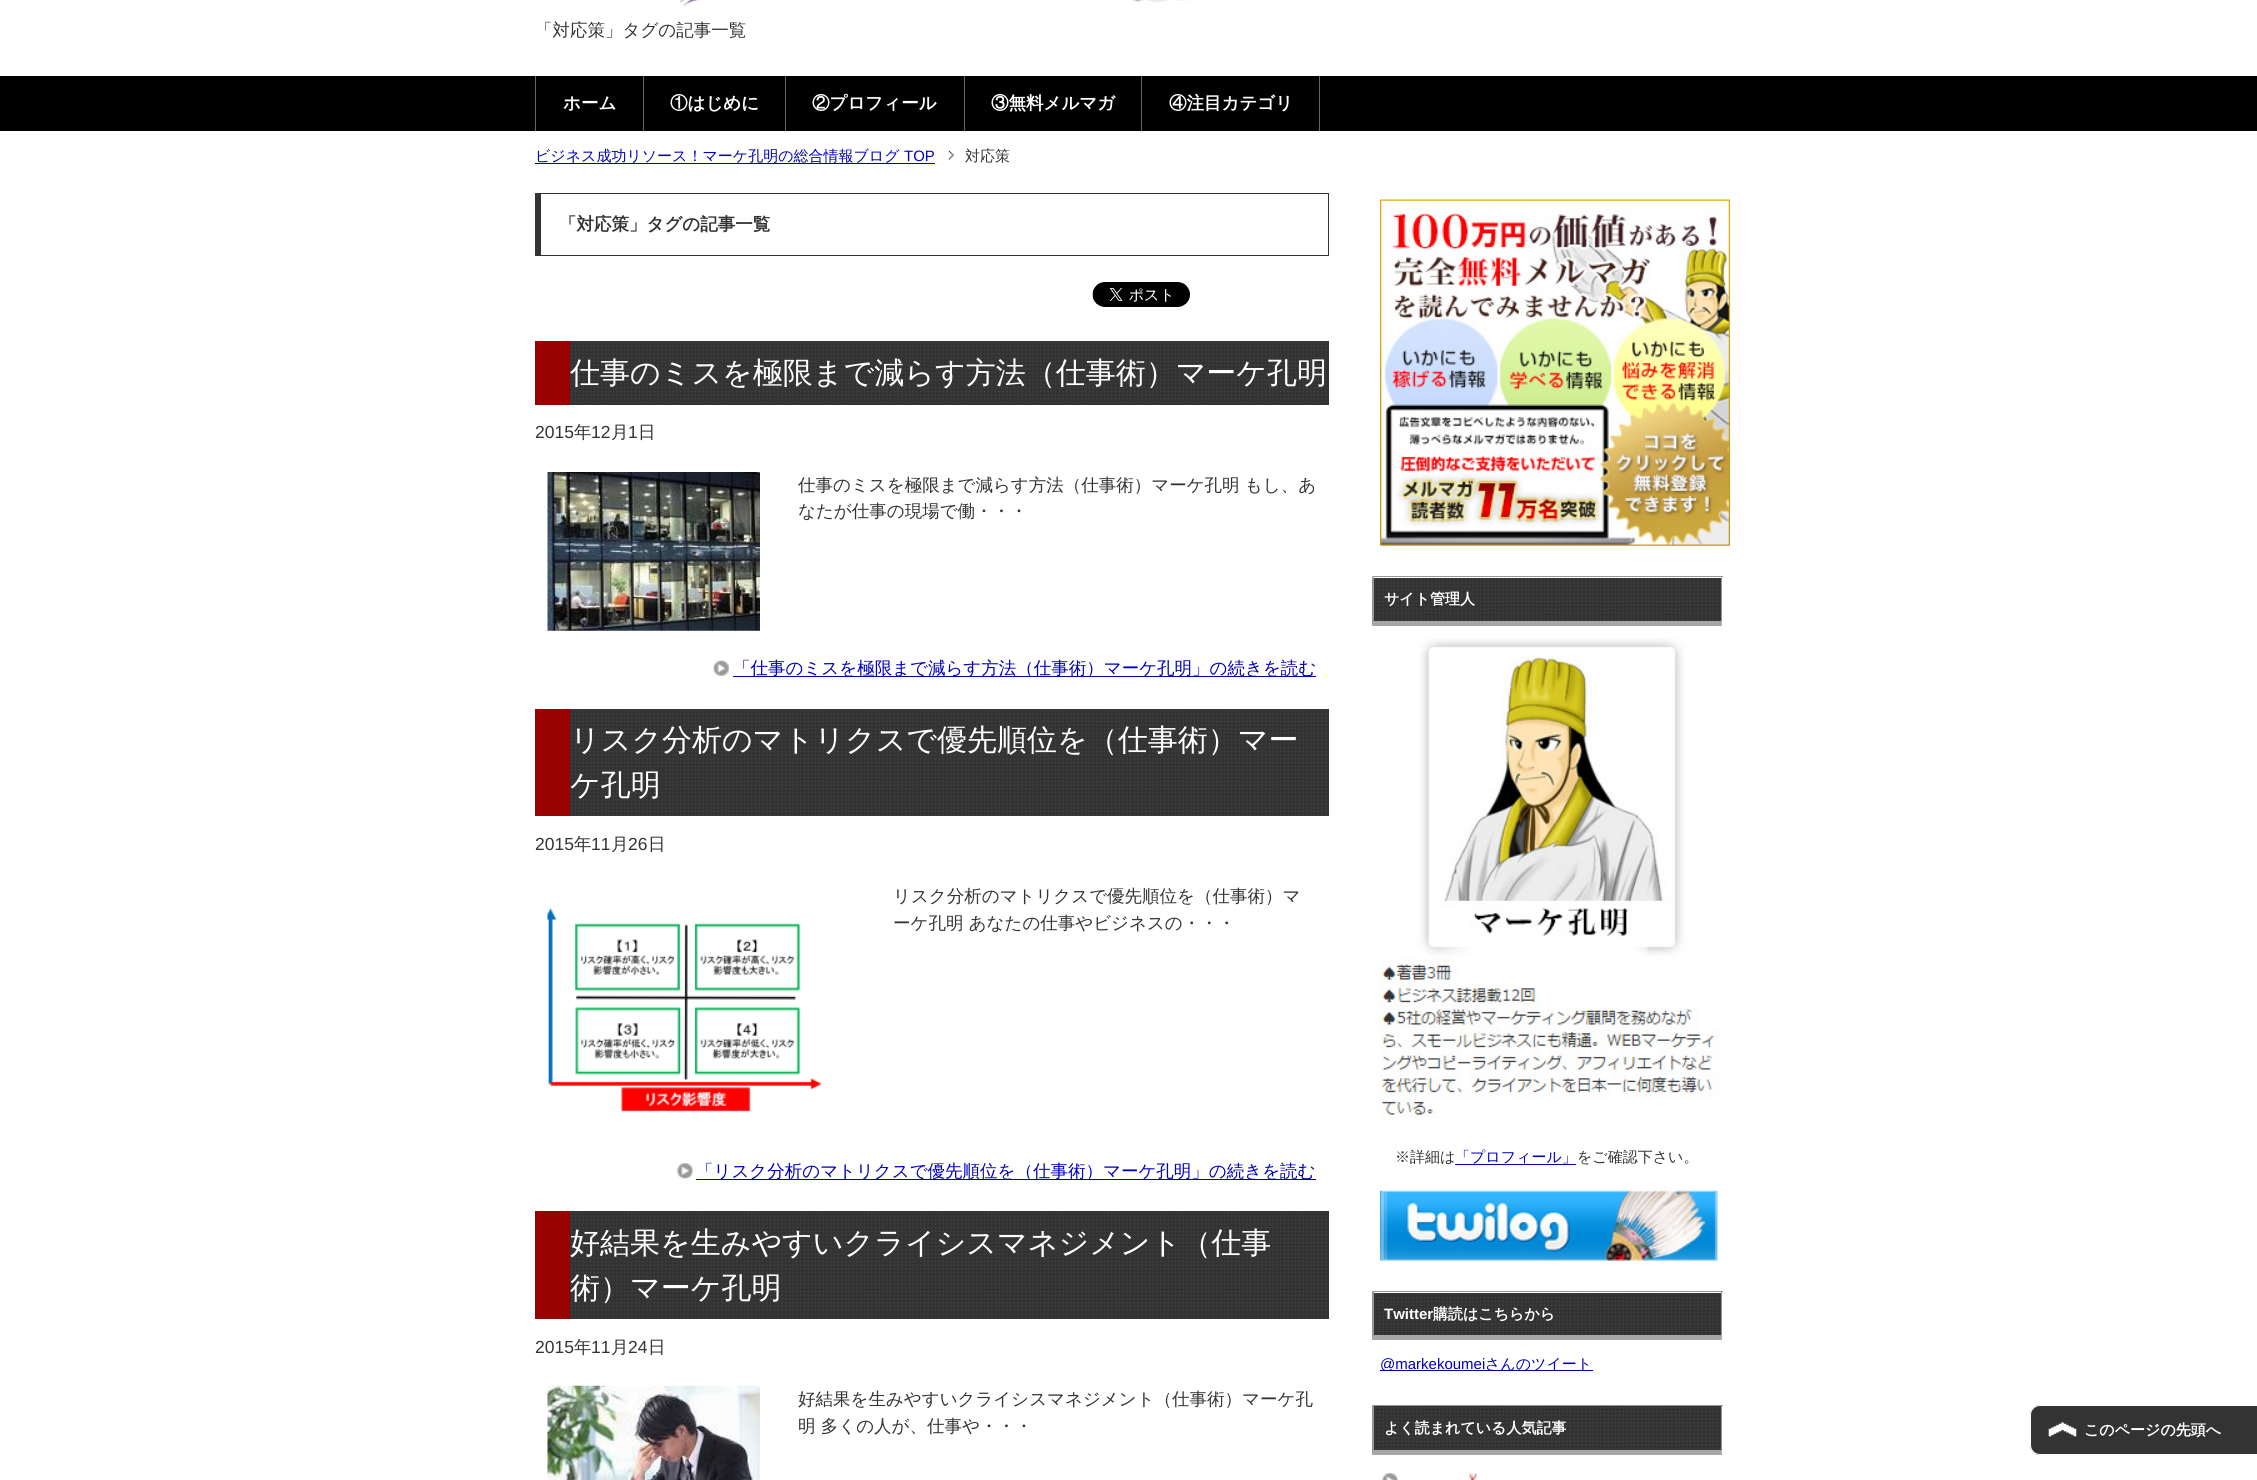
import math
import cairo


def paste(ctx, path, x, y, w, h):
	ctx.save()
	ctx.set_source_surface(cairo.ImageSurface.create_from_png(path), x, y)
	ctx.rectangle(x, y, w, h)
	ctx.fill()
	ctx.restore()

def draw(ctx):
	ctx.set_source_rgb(1, 1, 1)
	ctx.paint()
	paste(ctx, 'media/1.png', 679, 0, 509, 6)
	ctx.select_font_face('WenQuanYi Zen Hei Medium')
	ctx.set_font_size(17.5)
	ctx.set_source_rgb(0.2, 0.2, 0.2)
	ctx.move_to(535, 36)
	ctx.show_text('「対応策」タグの記事一覧')
	ctx.set_source_rgb(0, 0, 0)
	ctx.rectangle(0, 76, 2257, 55)
	ctx.fill()
	ctx.set_source_rgb(0.4, 0.4, 0.4)
	ctx.rectangle(643, 76, 1, 55)
	ctx.rectangle(535, 76, 1, 55)
	ctx.fill()
	ctx.select_font_face('WenQuanYi Zen Hei', cairo.FONT_SLANT_NORMAL, cairo.FONT_WEIGHT_BOLD)
	ctx.set_source_rgb(1, 1, 1)
	ctx.move_to(563, 109)
	ctx.show_text('ホーム')
	ctx.set_source_rgb(0.4, 0.4, 0.4)
	ctx.rectangle(785, 76, 1, 55)
	ctx.fill()
	ctx.set_source_rgb(1, 1, 1)
	ctx.move_to(670, 109)
	ctx.show_text('①はじめに')
	ctx.set_source_rgb(0.4, 0.4, 0.4)
	ctx.rectangle(964, 76, 1, 55)
	ctx.fill()
	ctx.set_source_rgb(1, 1, 1)
	ctx.move_to(812, 109)
	ctx.show_text('②プロフィール')
	ctx.set_source_rgb(0.4, 0.4, 0.4)
	ctx.rectangle(1141, 76, 1, 55)
	ctx.fill()
	ctx.set_source_rgb(1, 1, 1)
	ctx.move_to(991, 109)
	ctx.show_text('③無料メルマガ')
	ctx.set_source_rgb(0.4, 0.4, 0.4)
	ctx.rectangle(1319, 76, 1, 55)
	ctx.fill()
	ctx.set_source_rgb(1, 1, 1)
	ctx.move_to(1169, 109)
	ctx.show_text('④注目カテゴリ')
	ctx.set_source_rgb(0, 0, 0.733)
	ctx.rectangle(535, 163, 400, 1)
	ctx.fill()
	ctx.select_font_face('WenQuanYi Zen Hei Medium')
	ctx.set_font_size(15)
	ctx.move_to(535, 161)
	ctx.show_text('ビジネス成功リソース！マーケ孔明の総合情報ブログ')
	ctx.select_font_face('Liberation Sans')
	ctx.move_to(904, 161)
	ctx.show_text('TOP')
	paste(ctx, 'media/2.png', 948, 150, 6, 10)
	ctx.select_font_face('WenQuanYi Zen Hei Medium')
	ctx.set_source_rgb(0.2, 0.2, 0.2)
	ctx.move_to(965, 161)
	ctx.show_text('対応策')
	ctx.rectangle(535, 193, 794, 1)
	ctx.rectangle(1328, 193, 1, 63)
	ctx.rectangle(535, 255, 794, 1)
	ctx.rectangle(535, 193, 6, 63)
	ctx.fill()
	ctx.select_font_face('WenQuanYi Zen Hei', cairo.FONT_SLANT_NORMAL, cairo.FONT_WEIGHT_BOLD)
	ctx.set_font_size(17.5)
	ctx.move_to(559, 230)
	ctx.show_text('「対応策」タグの記事一覧')
	paste(ctx, 'media/3.png', 1092, 282, 98, 25)
	ctx.rectangle(570, 341, 759, 64)
	ctx.fill()
	paste(ctx, 'media/4.png', 571, 342, 756, 62)
	ctx.set_source_rgb(0.6, 0, 0)
	ctx.rectangle(535, 341, 35, 64)
	ctx.fill()
	ctx.select_font_face('WenQuanYi Zen Hei Medium')
	ctx.set_font_size(30)
	ctx.set_source_rgb(1, 1, 1)
	ctx.move_to(570, 383)
	ctx.show_text('仕事のミスを極限まで減らす方法（仕事術）マーケ孔明')
	ctx.select_font_face('Liberation Sans')
	ctx.set_font_size(17.5)
	ctx.set_source_rgb(0.2, 0.2, 0.2)
	ctx.move_to(535, 438)
	ctx.show_text('2015')
	ctx.select_font_face('WenQuanYi Zen Hei Medium')
	ctx.move_to(574, 438)
	ctx.show_text('年')
	ctx.select_font_face('Liberation Sans')
	ctx.move_to(591, 438)
	ctx.show_text('12')
	ctx.select_font_face('WenQuanYi Zen Hei Medium')
	ctx.move_to(611, 438)
	ctx.show_text('月')
	ctx.select_font_face('Liberation Sans')
	ctx.move_to(628, 438)
	ctx.show_text('1')
	ctx.select_font_face('WenQuanYi Zen Hei Medium')
	ctx.move_to(638, 438)
	ctx.show_text('日')
	paste(ctx, 'media/5.png', 547, 472, 213, 159)
	ctx.move_to(798, 491)
	ctx.show_text('仕事のミスを極限まで減らす方法（仕事術）マーケ孔明 もし、あ')
	ctx.move_to(798, 517)
	ctx.show_text('なたが仕事の現場で働・・・')
	paste(ctx, 'media/6.png', 713, 660, 16, 16)
	ctx.set_source_rgb(0, 0, 0.733)
	ctx.rectangle(733, 676, 583, 1)
	ctx.fill()
	ctx.move_to(733, 674)
	ctx.show_text('「仕事のミスを極限まで減らす方法（仕事術）マーケ孔明」の続きを読む')
	ctx.set_source_rgb(0.2, 0.2, 0.2)
	ctx.rectangle(570, 709, 759, 107)
	ctx.fill()
	paste(ctx, 'media/7.png', 571, 709, 756, 107)
	ctx.set_source_rgb(0.6, 0, 0)
	ctx.rectangle(535, 709, 35, 107)
	ctx.fill()
	ctx.set_font_size(30)
	ctx.set_source_rgb(1, 1, 1)
	ctx.move_to(570, 750)
	ctx.show_text('リスク分析のマトリクスで優先順位を（仕事術）マー')
	ctx.move_to(570, 795)
	ctx.show_text('ケ孔明')
	ctx.select_font_face('Liberation Sans')
	ctx.set_font_size(17.5)
	ctx.set_source_rgb(0.2, 0.2, 0.2)
	ctx.move_to(535, 850)
	ctx.show_text('2015')
	ctx.select_font_face('WenQuanYi Zen Hei Medium')
	ctx.move_to(574, 850)
	ctx.show_text('年')
	ctx.select_font_face('Liberation Sans')
	ctx.move_to(591, 850)
	ctx.show_text('11')
	ctx.select_font_face('WenQuanYi Zen Hei Medium')
	ctx.move_to(611, 850)
	ctx.show_text('月')
	ctx.select_font_face('Liberation Sans')
	ctx.move_to(628, 850)
	ctx.show_text('26')
	ctx.select_font_face('WenQuanYi Zen Hei Medium')
	ctx.move_to(648, 850)
	ctx.show_text('日')
	paste(ctx, 'media/8.png', 547, 908, 275, 204)
	ctx.move_to(893, 902)
	ctx.show_text('リスク分析のマトリクスで優先順位を（仕事術）マ')
	ctx.move_to(893, 929)
	ctx.show_text('ーケ孔明 あなたの仕事やビジネスの・・・')
	paste(ctx, 'media/9.png', 677, 1163, 16, 16)
	ctx.set_source_rgb(0, 0, 0.733)
	ctx.rectangle(696, 1179, 620, 1)
	ctx.fill()
	ctx.move_to(696, 1177)
	ctx.show_text('「リスク分析のマトリクスで優先順位を（仕事術）マーケ孔明」の続きを読む')
	ctx.set_source_rgb(0.2, 0.2, 0.2)
	ctx.rectangle(570, 1211, 759, 108)
	ctx.fill()
	paste(ctx, 'media/10.png', 571, 1212, 756, 106)
	ctx.set_source_rgb(0.6, 0, 0)
	ctx.rectangle(535, 1211, 35, 108)
	ctx.fill()
	ctx.set_font_size(30)
	ctx.set_source_rgb(1, 1, 1)
	ctx.move_to(570, 1253)
	ctx.show_text('好結果を生みやすいクライシスマネジメント（仕事')
	ctx.move_to(570, 1298)
	ctx.show_text('術）マーケ孔明')
	ctx.select_font_face('Liberation Sans')
	ctx.set_font_size(17.5)
	ctx.set_source_rgb(0.2, 0.2, 0.2)
	ctx.move_to(535, 1353)
	ctx.show_text('2015')
	ctx.select_font_face('WenQuanYi Zen Hei Medium')
	ctx.move_to(574, 1353)
	ctx.show_text('年')
	ctx.select_font_face('Liberation Sans')
	ctx.move_to(591, 1353)
	ctx.show_text('11')
	ctx.select_font_face('WenQuanYi Zen Hei Medium')
	ctx.move_to(611, 1353)
	ctx.show_text('月')
	ctx.select_font_face('Liberation Sans')
	ctx.move_to(628, 1353)
	ctx.show_text('24')
	ctx.select_font_face('WenQuanYi Zen Hei Medium')
	ctx.move_to(648, 1353)
	ctx.show_text('日')
	paste(ctx, 'media/11.png', 547, 1385, 213, 95)
	ctx.move_to(798, 1405)
	ctx.show_text('好結果を生みやすいクライシスマネジメント（仕事術）マーケ孔')
	ctx.move_to(798, 1432)
	ctx.show_text('明 多くの人が、仕事や・・・')
	paste(ctx, 'media/12.png', 1380, 199, 350, 347)
	ctx.rectangle(1374, 578, 347, 43)
	ctx.fill()
	paste(ctx, 'media/13.png', 1375, 578, 346, 43)
	ctx.set_source_rgb(0.584, 0.584, 0.584)
	ctx.rectangle(1373, 576, 350, 1)
	ctx.fill()
	ctx.new_path()
	ctx.move_to(1722, 576)
	ctx.line_to(1722, 626)
	ctx.line_to(1721, 621)
	ctx.line_to(1721, 578)
	ctx.close_path()
	ctx.fill()
	ctx.set_source_rgb(0.651, 0.651, 0.651)
	ctx.new_path()
	ctx.move_to(1722, 626)
	ctx.line_to(1372, 626)
	ctx.line_to(1374, 621)
	ctx.line_to(1721, 621)
	ctx.close_path()
	ctx.fill()
	ctx.set_source_rgb(0.584, 0.584, 0.584)
	ctx.new_path()
	ctx.move_to(1372, 626)
	ctx.line_to(1372, 576)
	ctx.line_to(1374, 578)
	ctx.line_to(1374, 621)
	ctx.close_path()
	ctx.fill()
	ctx.select_font_face('WenQuanYi Zen Hei', cairo.FONT_SLANT_NORMAL, cairo.FONT_WEIGHT_BOLD)
	ctx.set_font_size(15)
	ctx.set_source_rgb(1, 1, 1)
	ctx.move_to(1384, 604)
	ctx.show_text('サイト管理人')
	paste(ctx, 'media/14.png', 1380, 638, 340, 480)
	ctx.select_font_face('WenQuanYi Zen Hei Medium')
	ctx.set_source_rgb(0.2, 0.2, 0.2)
	ctx.move_to(1395, 1162)
	ctx.show_text('※詳細は')
	ctx.set_source_rgb(0, 0, 0.733)
	ctx.move_to(1455, 1162)
	ctx.show_text('「プロフィール」')
	ctx.rectangle(1455, 1164, 121, 1)
	ctx.fill()
	ctx.set_source_rgb(0.2, 0.2, 0.2)
	ctx.move_to(1577, 1162)
	ctx.show_text('をご確認下さい。')
	paste(ctx, 'media/15.png', 1380, 1190, 338, 71)
	ctx.rectangle(1374, 1293, 347, 42)
	ctx.fill()
	paste(ctx, 'media/16.png', 1375, 1293, 346, 42)
	ctx.set_source_rgb(0.584, 0.584, 0.584)
	ctx.rectangle(1373, 1291, 350, 1)
	ctx.fill()
	ctx.new_path()
	ctx.move_to(1722, 1291)
	ctx.line_to(1722, 1340)
	ctx.line_to(1721, 1335)
	ctx.line_to(1721, 1292)
	ctx.close_path()
	ctx.fill()
	ctx.set_source_rgb(0.651, 0.651, 0.651)
	ctx.new_path()
	ctx.move_to(1722, 1340)
	ctx.line_to(1372, 1340)
	ctx.line_to(1374, 1335)
	ctx.line_to(1721, 1335)
	ctx.close_path()
	ctx.fill()
	ctx.set_source_rgb(0.584, 0.584, 0.584)
	ctx.new_path()
	ctx.move_to(1372, 1340)
	ctx.line_to(1372, 1291)
	ctx.line_to(1374, 1292)
	ctx.line_to(1374, 1335)
	ctx.close_path()
	ctx.fill()
	ctx.select_font_face('Liberation Sans', cairo.FONT_SLANT_NORMAL, cairo.FONT_WEIGHT_BOLD)
	ctx.set_source_rgb(1, 1, 1)
	ctx.move_to(1384, 1319)
	ctx.show_text('Twitter')
	ctx.select_font_face('WenQuanYi Zen Hei', cairo.FONT_SLANT_NORMAL, cairo.FONT_WEIGHT_BOLD)
	ctx.move_to(1433, 1319)
	ctx.show_text('購読はこちらから')
	ctx.set_source_rgb(0, 0, 0.733)
	ctx.rectangle(1380, 1370, 213, 1)
	ctx.fill()
	ctx.select_font_face('Liberation Sans')
	ctx.move_to(1380, 1369)
	ctx.show_text('@markekoumei')
	ctx.select_font_face('WenQuanYi Zen Hei Medium')
	ctx.move_to(1485, 1369)
	ctx.show_text('さんのツイート')
	ctx.set_source_rgb(0.2, 0.2, 0.2)
	ctx.rectangle(1374, 1406, 347, 44)
	ctx.fill()
	paste(ctx, 'media/17.png', 1375, 1407, 346, 43)
	ctx.set_source_rgb(0.584, 0.584, 0.584)
	ctx.rectangle(1373, 1405, 350, 1)
	ctx.fill()
	ctx.new_path()
	ctx.move_to(1722, 1405)
	ctx.line_to(1722, 1455)
	ctx.line_to(1721, 1450)
	ctx.line_to(1721, 1406)
	ctx.close_path()
	ctx.fill()
	ctx.set_source_rgb(0.651, 0.651, 0.651)
	ctx.new_path()
	ctx.move_to(1722, 1455)
	ctx.line_to(1372, 1455)
	ctx.line_to(1374, 1450)
	ctx.line_to(1721, 1450)
	ctx.close_path()
	ctx.fill()
	ctx.set_source_rgb(0.584, 0.584, 0.584)
	ctx.new_path()
	ctx.move_to(1372, 1455)
	ctx.line_to(1372, 1405)
	ctx.line_to(1374, 1406)
	ctx.line_to(1374, 1450)
	ctx.close_path()
	ctx.fill()
	ctx.select_font_face('WenQuanYi Zen Hei', cairo.FONT_SLANT_NORMAL, cairo.FONT_WEIGHT_BOLD)
	ctx.set_source_rgb(1, 1, 1)
	ctx.move_to(1384, 1433)
	ctx.show_text('よく読まれている人気記事')
	paste(ctx, 'media/18.png', 1382, 1473, 16, 7)
	paste(ctx, 'media/19.png', 1468, 1473, 10, 7)
	ctx.set_source_rgb(0.2, 0.2, 0.2)
	ctx.new_path()
	ctx.move_to(2040, 1405)
	ctx.line_to(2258, 1405)
	ctx.line_to(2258, 1455)
	ctx.line_to(2040, 1455)
	ctx.curve_to(2034.5, 1455, 2030, 1450.5, 2030, 1445)
	ctx.line_to(2030, 1415)
	ctx.curve_to(2030, 1409.5, 2034.5, 1405, 2040, 1405)
	ctx.close_path()
	ctx.fill()
	paste(ctx, 'media/20.png', 2048, 1422, 29, 15)
	ctx.set_source_rgb(1, 1, 1)
	ctx.set_fill_rule(cairo.FILL_RULE_EVEN_ODD)
	ctx.new_path()
	ctx.move_to(2040, 1405)
	ctx.line_to(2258, 1405)
	ctx.line_to(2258, 1455)
	ctx.line_to(2040, 1455)
	ctx.curve_to(2034, 1455, 2030, 1451, 2030, 1445)
	ctx.line_to(2030, 1415)
	ctx.curve_to(2030, 1409, 2034, 1405, 2040, 1405)
	ctx.close_path()
	ctx.move_to(2040, 1406)
	ctx.line_to(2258, 1406)
	ctx.line_to(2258, 1454)
	ctx.line_to(2040, 1454)
	ctx.curve_to(2035, 1454, 2031, 1450, 2031, 1445)
	ctx.line_to(2031, 1415)
	ctx.curve_to(2031, 1410, 2035, 1406, 2040, 1406)
	ctx.close_path()
	ctx.fill()
	ctx.move_to(2084, 1435)
	ctx.show_text('このページの先頭へ')


surface = cairo.ImageSurface(cairo.FORMAT_RGB24, 2257, 1480)
ctx = cairo.Context(surface)
options = cairo.FontOptions()
options.set_hint_metrics(cairo.HINT_METRICS_OFF)
options.set_hint_style(cairo.HINT_STYLE_NONE)
ctx.set_font_options(options)
ctx.set_miter_limit(4)
draw(ctx)
surface.write_to_png('image.png')
